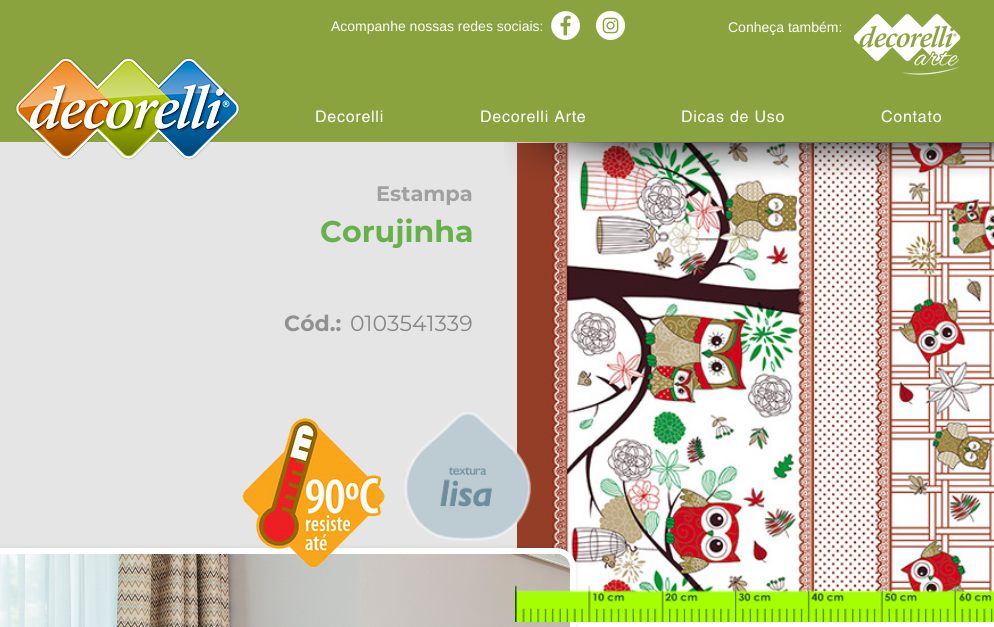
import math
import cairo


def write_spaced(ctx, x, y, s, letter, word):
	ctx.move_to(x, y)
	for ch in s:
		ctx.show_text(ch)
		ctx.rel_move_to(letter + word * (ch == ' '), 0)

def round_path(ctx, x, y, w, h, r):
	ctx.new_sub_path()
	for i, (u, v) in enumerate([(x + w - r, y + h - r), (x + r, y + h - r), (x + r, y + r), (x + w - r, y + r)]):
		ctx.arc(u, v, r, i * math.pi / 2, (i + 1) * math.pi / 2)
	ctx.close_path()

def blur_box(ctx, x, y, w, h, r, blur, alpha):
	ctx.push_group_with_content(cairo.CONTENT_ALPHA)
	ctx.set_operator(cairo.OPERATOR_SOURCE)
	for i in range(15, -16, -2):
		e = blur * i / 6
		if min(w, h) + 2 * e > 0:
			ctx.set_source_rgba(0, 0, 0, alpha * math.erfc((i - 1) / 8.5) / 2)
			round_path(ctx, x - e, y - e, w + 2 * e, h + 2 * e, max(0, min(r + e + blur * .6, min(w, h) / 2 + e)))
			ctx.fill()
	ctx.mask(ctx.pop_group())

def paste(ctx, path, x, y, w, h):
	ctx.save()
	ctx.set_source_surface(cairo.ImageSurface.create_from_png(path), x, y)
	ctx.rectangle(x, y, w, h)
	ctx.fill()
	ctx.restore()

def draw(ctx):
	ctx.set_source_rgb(1, 1, 1)
	ctx.paint()
	ctx.set_source_rgb(0.541, 0.639, 0.243)
	ctx.rectangle(0, 0, 994, 142)
	ctx.fill()
	ctx.select_font_face('Liberation Sans')
	ctx.set_font_size(14)
	ctx.set_source_rgb(1, 1, 1)
	ctx.move_to(331, 31)
	ctx.show_text('Acompanhe nossas redes sociais:')
	paste(ctx, 'media/1.png', 551, 11, 29, 29)
	paste(ctx, 'media/2.png', 596, 11, 29, 29)
	ctx.move_to(728, 32)
	ctx.show_text('Conheça também:')
	paste(ctx, 'media/3.png', 854, 14, 107, 61)
	ctx.set_source_rgb(0.898, 0.898, 0.898)
	ctx.rectangle(0, 142, 994, 480)
	ctx.fill()
	paste(ctx, 'media/4.png', 15, 58, 225, 102)
	ctx.select_font_face('helvetica')
	ctx.set_font_size(16)
	ctx.set_source_rgb(1, 1, 1)
	for x, y, s in [
		(315, 122, 'Decorelli'),
		(480, 122, 'Decorelli Arte'),
		(681, 122, 'Dicas de Uso'),
		(881, 122, 'Contato'),
	]:
		write_spaced(ctx, x, y, s, 0.75, 0)
	paste(ctx, 'media/6.png', 517, 143, 477, 450)
	paste(ctx, 'media/5.png', 504, 142, 490, 40)
	ctx.select_font_face('Montserrat', cairo.FONT_SLANT_NORMAL, cairo.FONT_WEIGHT_BOLD)
	ctx.set_font_size(21)
	ctx.set_source_rgb(0.627, 0.627, 0.624)
	ctx.move_to(376, 201)
	ctx.show_text('Estampa')
	ctx.set_font_size(30)
	ctx.set_source_rgb(0.408, 0.69, 0.302)
	ctx.move_to(320, 242)
	ctx.show_text('Corujinha')
	ctx.set_font_size(22)
	ctx.set_source_rgb(0.569, 0.569, 0.569)
	ctx.move_to(284, 331)
	ctx.show_text('Cód.:')
	ctx.select_font_face('Montserrat')
	ctx.set_source_rgb(0.522, 0.522, 0.522)
	ctx.move_to(350, 331)
	ctx.show_text('0103541339')
	ctx.set_source_rgb(0, 0, 0)
	blur_box(ctx, -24, 548, 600, 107, 20, 2.5, 0.1)
	round_path(ctx, -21, 551, 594, 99, 17)
	ctx.set_source_rgb(1, 1, 1)
	ctx.set_line_width(6)
	ctx.stroke()
	paste(ctx, 'media/9.png', 0, 554, 570, 73)
	paste(ctx, 'media/7.png', 242, 418, 145, 150)
	paste(ctx, 'media/8.png', 404, 412, 128, 129)
	paste(ctx, 'media/10.png', 515, 585, 479, 37)


surface = cairo.ImageSurface(cairo.FORMAT_RGB24, 994, 627)
ctx = cairo.Context(surface)
options = cairo.FontOptions()
options.set_hint_metrics(cairo.HINT_METRICS_OFF)
options.set_hint_style(cairo.HINT_STYLE_NONE)
ctx.set_font_options(options)
ctx.set_miter_limit(4)
draw(ctx)
surface.write_to_png('image.png')
